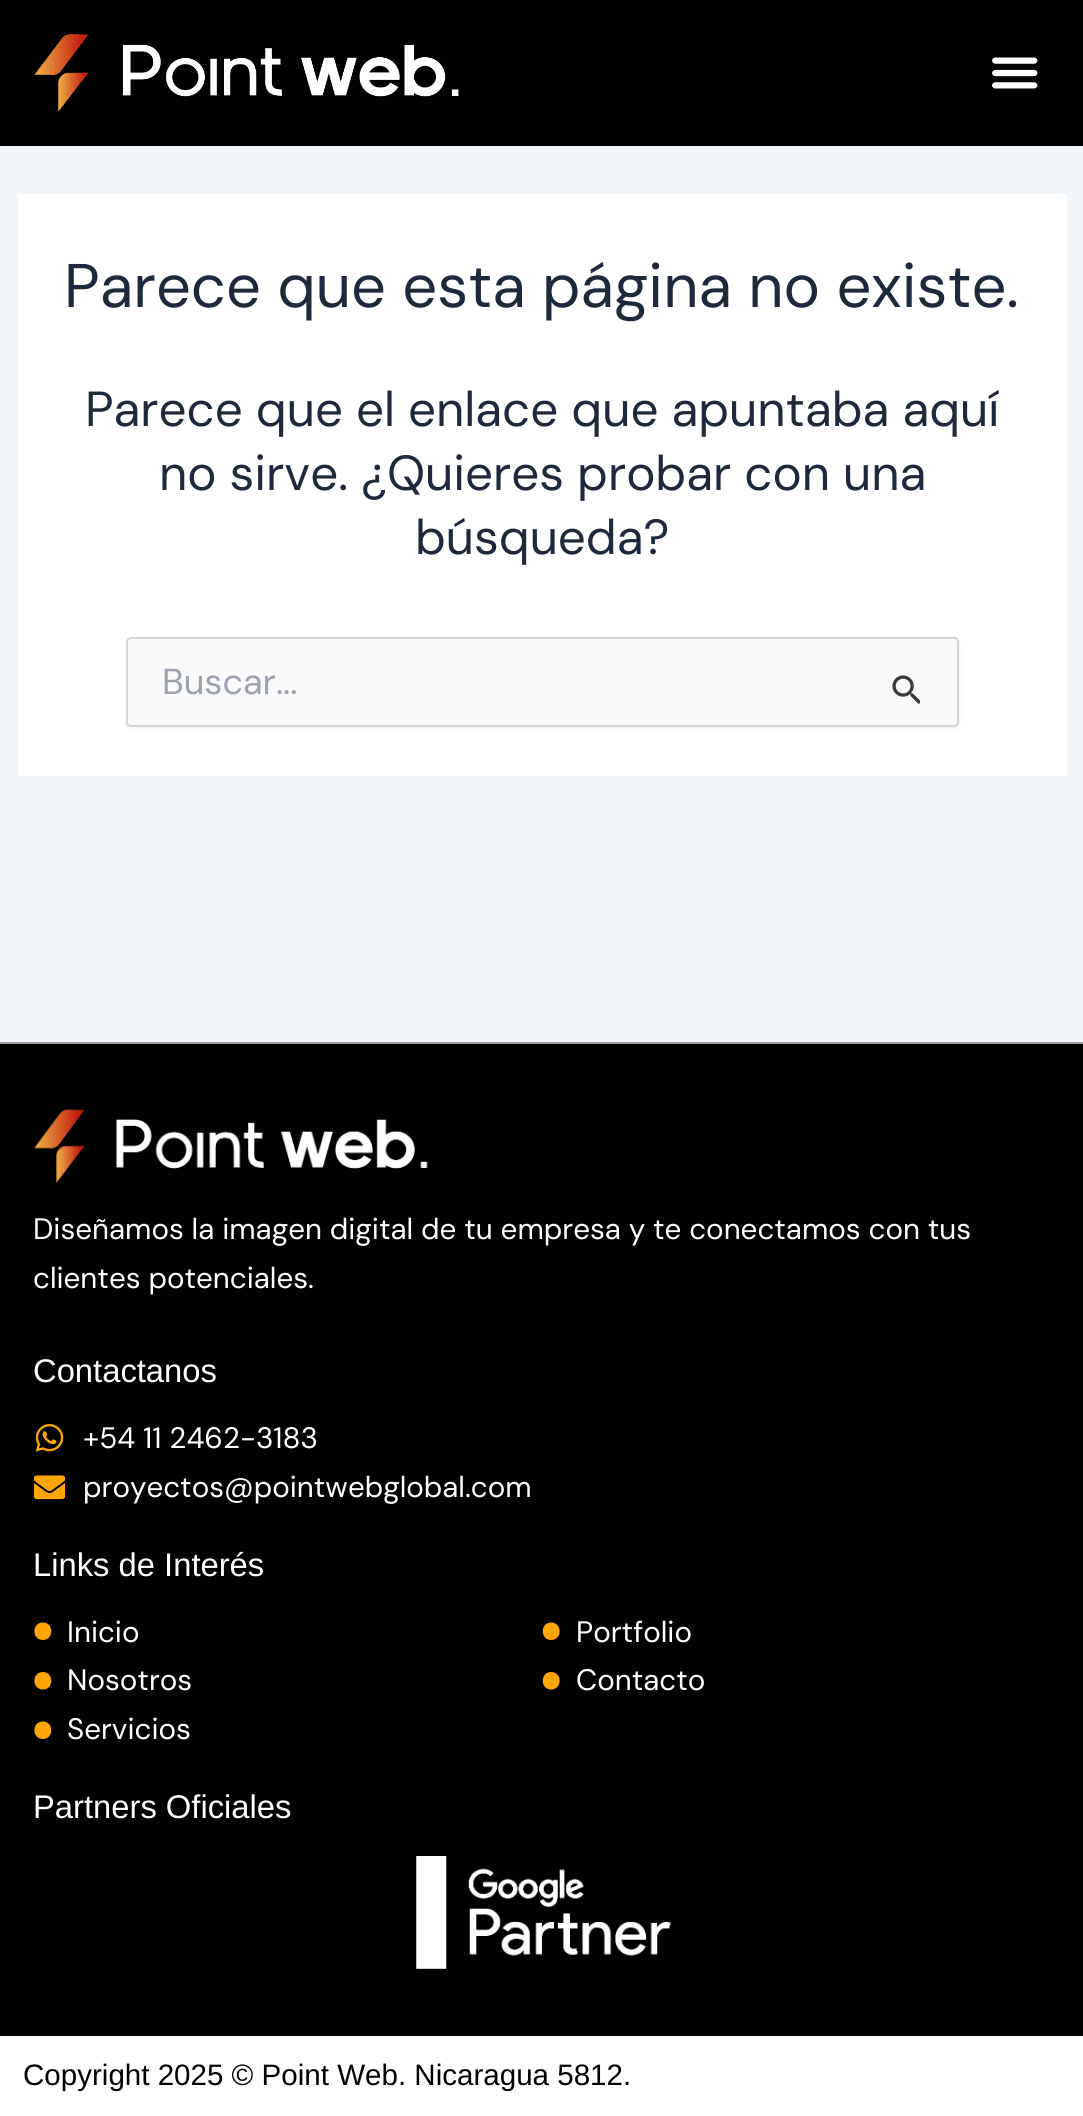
import math
import cairo


def round_path(ctx, x, y, w, h, r):
	ctx.new_sub_path()
	for i, (u, v) in enumerate([(x + w - r, y + h - r), (x + r, y + h - r), (x + r, y + r), (x + w - r, y + r)]):
		ctx.arc(u, v, r, i * math.pi / 2, (i + 1) * math.pi / 2)
	ctx.close_path()

def blur_box(ctx, x, y, w, h, r, blur, alpha):
	ctx.push_group_with_content(cairo.CONTENT_ALPHA)
	ctx.set_operator(cairo.OPERATOR_SOURCE)
	for i in range(15, -16, -2):
		e = blur * i / 6
		if min(w, h) + 2 * e > 0:
			ctx.set_source_rgba(0, 0, 0, alpha * math.erfc((i - 1) / 8.5) / 2)
			round_path(ctx, x - e, y - e, w + 2 * e, h + 2 * e, max(0, min(r + e + blur * .6, min(w, h) / 2 + e)))
			ctx.fill()
	ctx.mask(ctx.pop_group())

def paste(ctx, path, x, y, w, h):
	ctx.save()
	ctx.set_source_surface(cairo.ImageSurface.create_from_png(path), x, y)
	ctx.rectangle(x, y, w, h)
	ctx.fill()
	ctx.restore()

def draw(ctx):
	ctx.set_source_rgb(0.941, 0.961, 0.98)
	ctx.paint()
	ctx.set_source_rgb(0.004, 0.008, 0)
	ctx.rectangle(0, 0, 1083, 146)
	ctx.fill()
	paste(ctx, 'media/1.png', 34, 34, 425, 78)
	paste(ctx, 'media/2.png', 992, 57, 46, 32)
	ctx.set_source_rgb(1, 1, 1)
	ctx.rectangle(18, 194, 1049, 582)
	ctx.fill()
	ctx.select_font_face('DM Sans')
	ctx.set_font_size(61.5)
	ctx.set_source_rgb(0.118, 0.161, 0.231)
	ctx.move_to(64, 307)
	ctx.show_text('Parece que esta página no existe.')
	ctx.set_font_size(49.25)
	for x, y, s in [
		(85, 426, 'Parece que el enlace que apuntaba aquí'),
		(159, 490, 'no sirve. ¿Quieres probar con una'),
		(415, 554, 'búsqueda?'),
	]:
		ctx.move_to(x, y)
		ctx.show_text(s)
	ctx.set_source_rgb(0, 0, 0)
	blur_box(ctx, 126, 639, 833, 90, 5, 2, 0.05)
	ctx.set_source_rgb(0.98, 0.98, 0.98)
	round_path(ctx, 127, 638, 831, 88, 4)
	ctx.fill_preserve()
	ctx.set_source_rgb(0.82, 0.835, 0.859)
	ctx.stroke()
	ctx.set_font_size(36)
	ctx.set_source_rgb(0.612, 0.639, 0.686)
	ctx.move_to(162, 694)
	ctx.show_text('Buscar...')
	paste(ctx, 'media/3.png', 892, 675, 28, 29)
	ctx.set_source_rgb(0.004, 0.008, 0)
	ctx.rectangle(0, 1044, 1083, 992)
	ctx.fill()
	ctx.set_source_rgb(0.612, 0.612, 0.612)
	ctx.rectangle(0, 1042, 1083, 2)
	ctx.fill()
	paste(ctx, 'media/4.png', 33, 1109, 395, 74)
	ctx.set_font_size(29.55)
	ctx.set_source_rgb(1, 1, 1)
	ctx.move_to(33, 1239)
	ctx.show_text('Diseñamos la imagen digital de tu empresa y te conectamos con tus')
	ctx.move_to(33, 1288)
	ctx.show_text('clientes potenciales.')
	ctx.select_font_face('Liberation Sans')
	ctx.set_font_size(32.75)
	ctx.move_to(33, 1382)
	ctx.show_text('Contactanos')
	paste(ctx, 'media/5.png', 35, 1424, 29, 28)
	ctx.select_font_face('DM Sans')
	ctx.set_font_size(29.55)
	ctx.move_to(83, 1448)
	ctx.show_text('+54 11 2462-3183')
	paste(ctx, 'media/6.png', 34, 1475, 31, 25)
	ctx.move_to(83, 1497)
	ctx.show_text('proyectos@pointwebglobal.com')
	ctx.select_font_face('Liberation Sans')
	ctx.set_font_size(32.75)
	ctx.move_to(33, 1576)
	ctx.show_text('Links de Interés')
	ctx.set_source_rgb(1, 0.651, 0.027)
	ctx.new_path()
	ctx.move_to(43, 1622.5)
	ctx.curve_to(31.5, 1622.5, 31.5, 1640, 43, 1640)
	ctx.curve_to(54, 1640, 54, 1622.5, 43, 1622.5)
	ctx.close_path()
	ctx.fill()
	ctx.select_font_face('DM Sans')
	ctx.set_font_size(29.55)
	ctx.set_source_rgb(1, 1, 1)
	ctx.move_to(67, 1642)
	ctx.show_text('Inicio')
	ctx.set_source_rgb(1, 0.651, 0.027)
	ctx.new_path()
	ctx.move_to(43, 1672)
	ctx.curve_to(31.5, 1672, 31.5, 1689.5, 43, 1689.5)
	ctx.curve_to(54, 1689.5, 54, 1672, 43, 1672)
	ctx.close_path()
	ctx.fill()
	ctx.set_source_rgb(1, 1, 1)
	ctx.move_to(67, 1690)
	ctx.show_text('Nosotros')
	ctx.set_source_rgb(1, 0.651, 0.027)
	ctx.new_path()
	ctx.move_to(43, 1721.5)
	ctx.curve_to(31.5, 1721.5, 31.5, 1739, 43, 1739)
	ctx.curve_to(54, 1739, 54, 1721.5, 43, 1721.5)
	ctx.close_path()
	ctx.fill()
	ctx.set_source_rgb(1, 1, 1)
	ctx.move_to(67, 1739)
	ctx.show_text('Servicios')
	ctx.set_source_rgb(1, 0.651, 0.027)
	ctx.new_path()
	ctx.move_to(551, 1622.5)
	ctx.curve_to(540, 1622.5, 540, 1640, 551, 1640)
	ctx.curve_to(562.5, 1640, 562.5, 1622.5, 551, 1622.5)
	ctx.close_path()
	ctx.fill()
	ctx.set_source_rgb(1, 1, 1)
	ctx.move_to(576, 1642)
	ctx.show_text('Portfolio')
	ctx.set_source_rgb(1, 0.651, 0.027)
	ctx.new_path()
	ctx.move_to(551, 1672)
	ctx.curve_to(540, 1672, 540, 1689.5, 551, 1689.5)
	ctx.curve_to(562.5, 1689.5, 562.5, 1672, 551, 1672)
	ctx.close_path()
	ctx.fill()
	ctx.set_source_rgb(1, 1, 1)
	ctx.move_to(576, 1690)
	ctx.show_text('Contacto')
	ctx.select_font_face('Liberation Sans')
	ctx.set_font_size(32.75)
	ctx.move_to(33, 1818)
	ctx.show_text('Partners Oficiales')
	paste(ctx, 'media/7.png', 416, 1856, 256, 113)
	ctx.rectangle(0, 2036, 1083, 80)
	ctx.fill()
	ctx.set_font_size(29.55)
	ctx.set_source_rgb(0, 0, 0)
	ctx.move_to(23, 2085)
	ctx.show_text('Copyright 2025 © Point Web. Nicaragua 5812.')


surface = cairo.ImageSurface(cairo.FORMAT_RGB24, 1083, 2116)
ctx = cairo.Context(surface)
options = cairo.FontOptions()
options.set_hint_metrics(cairo.HINT_METRICS_OFF)
options.set_hint_style(cairo.HINT_STYLE_NONE)
ctx.set_font_options(options)
ctx.set_miter_limit(4)
draw(ctx)
surface.write_to_png('image.png')
